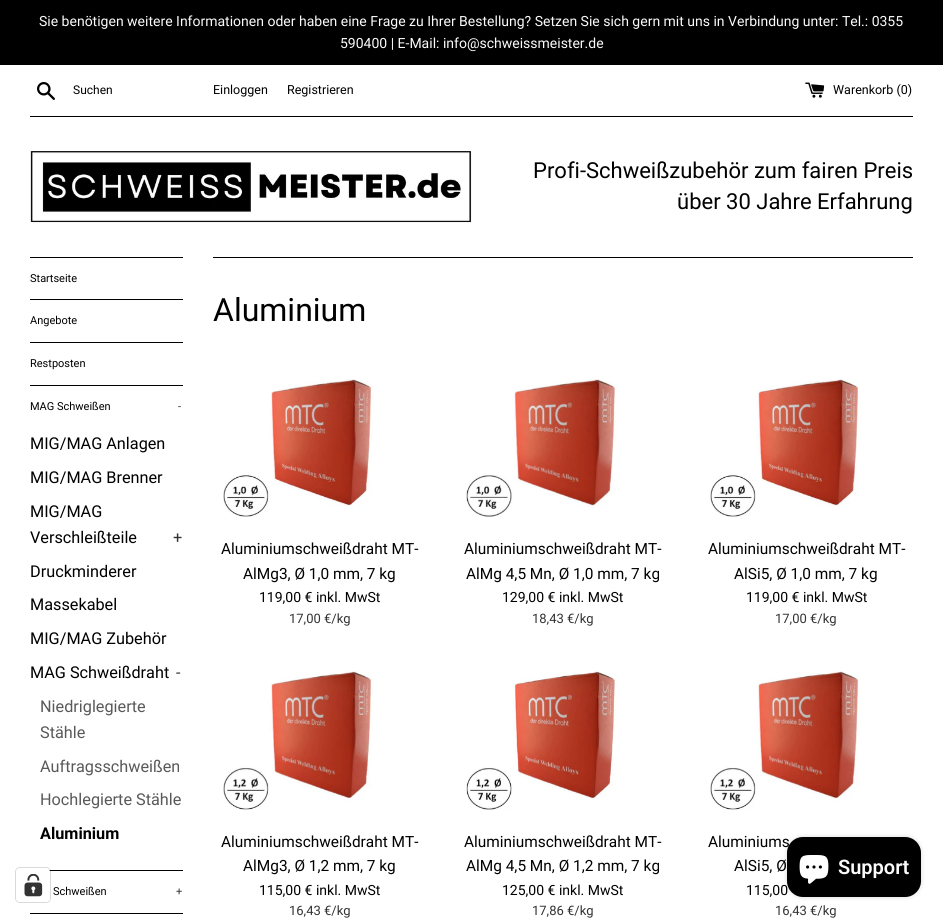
import math
import cairo


def round_path(ctx, x, y, w, h, r):
	ctx.new_sub_path()
	for i, (u, v) in enumerate([(x + w - r, y + h - r), (x + r, y + h - r), (x + r, y + r), (x + w - r, y + r)]):
		ctx.arc(u, v, r, i * math.pi / 2, (i + 1) * math.pi / 2)
	ctx.close_path()

def blur_box(ctx, x, y, w, h, r, blur, alpha):
	ctx.push_group_with_content(cairo.CONTENT_ALPHA)
	ctx.set_operator(cairo.OPERATOR_SOURCE)
	for i in range(15, -16, -2):
		e = blur * i / 6
		if min(w, h) + 2 * e > 0:
			ctx.set_source_rgba(0, 0, 0, alpha * math.erfc((i - 1) / 8.5) / 2)
			round_path(ctx, x - e, y - e, w + 2 * e, h + 2 * e, max(0, min(r + e + blur * .6, min(w, h) / 2 + e)))
			ctx.fill()
	ctx.mask(ctx.pop_group())

def paste(ctx, path, x, y, w, h):
	ctx.save()
	ctx.set_source_surface(cairo.ImageSurface.create_from_png(path), x, y)
	ctx.rectangle(x, y, w, h)
	ctx.fill()
	ctx.restore()

def draw(ctx):
	ctx.set_source_rgb(1, 1, 1)
	ctx.paint()
	ctx.set_source_rgb(0, 0, 0)
	ctx.rectangle(0, 0, 943, 65)
	ctx.fill()
	ctx.select_font_face('Roboto')
	ctx.set_font_size(14)
	ctx.set_source_rgb(0.98, 0.98, 0.98)
	ctx.move_to(39, 26)
	ctx.show_text('Sie benötigen weitere Informationen oder haben eine Frage zu Ihrer Bestellung? Setzen Sie sich gern mit uns in Verbindung unter: Tel.: 0355')
	ctx.move_to(340, 48)
	ctx.show_text('590400 | E-Mail: info@schweissmeister.de')
	paste(ctx, 'media/1.png', 37, 82, 18, 18)
	ctx.set_font_size(12)
	ctx.set_source_rgb(0, 0, 0)
	ctx.move_to(73, 94)
	ctx.show_text('Suchen')
	ctx.set_font_size(12.5)
	ctx.move_to(213, 94)
	ctx.show_text('Einloggen')
	ctx.move_to(287, 94)
	ctx.show_text('Registrieren')
	paste(ctx, 'media/2.png', 805, 82, 20, 16)
	ctx.move_to(833, 94)
	ctx.show_text('Warenkorb (0)')
	ctx.rectangle(30, 116, 883, 1)
	ctx.fill()
	paste(ctx, 'media/3.png', 30, 151, 442, 72)
	ctx.set_font_size(22)
	ctx.move_to(533, 178)
	ctx.show_text('Profi-Schweißzubehör zum fairen Preis')
	ctx.move_to(677, 209)
	ctx.show_text('über 30 Jahre Erfahrung')
	ctx.rectangle(30, 257, 153, 1)
	ctx.fill()
	ctx.rectangle(30, 299, 153, 1)
	ctx.fill()
	ctx.set_font_size(11)
	ctx.move_to(30, 282)
	ctx.show_text('Startseite')
	ctx.rectangle(30, 342, 153, 1)
	ctx.fill()
	ctx.move_to(30, 324)
	ctx.show_text('Angebote')
	ctx.rectangle(30, 385, 153, 1)
	ctx.fill()
	ctx.move_to(30, 367)
	ctx.show_text('Restposten')
	ctx.rectangle(49, 870, 134, 1)
	ctx.fill()
	ctx.move_to(30, 410)
	ctx.show_text('MAG Schweißen')
	ctx.set_source_rgb(0.2, 0.2, 0.2)
	ctx.move_to(178, 410)
	ctx.show_text('-')
	ctx.set_font_size(16.25)
	ctx.set_source_rgb(0, 0, 0)
	for x, y, s in [
		(30, 449, 'MIG/MAG Anlagen'),
		(30, 483, 'MIG/MAG Brenner'),
		(30, 517, 'MIG/MAG'),
		(30, 543, 'Verschleißteile'),
	]:
		ctx.move_to(x, y)
		ctx.show_text(s)
	ctx.set_source_rgb(0.2, 0.2, 0.2)
	ctx.move_to(173, 543)
	ctx.show_text('+')
	ctx.set_source_rgb(0, 0, 0)
	for x, y, s in [
		(30, 577, 'Druckminderer'),
		(30, 610, 'Massekabel'),
		(30, 644, 'MIG/MAG Zubehör'),
		(30, 678, 'MAG Schweißdraht'),
	]:
		ctx.move_to(x, y)
		ctx.show_text(s)
	ctx.set_source_rgb(0.2, 0.2, 0.2)
	ctx.move_to(176, 678)
	ctx.show_text('-')
	ctx.set_source_rgb(0.349, 0.349, 0.349)
	for x, y, s in [
		(40, 712, 'Niedriglegierte'),
		(40, 738, 'Stähle'),
		(40, 772, 'Auftragsschweißen'),
		(40, 805, 'Hochlegierte Stähle'),
	]:
		ctx.move_to(x, y)
		ctx.show_text(s)
	ctx.select_font_face('Roboto', cairo.FONT_SLANT_NORMAL, cairo.FONT_WEIGHT_BOLD)
	ctx.set_source_rgb(0, 0, 0)
	ctx.move_to(40, 839)
	ctx.show_text('Aluminium')
	ctx.rectangle(30, 913, 153, 1)
	ctx.fill()
	ctx.select_font_face('Roboto')
	ctx.set_font_size(11)
	ctx.move_to(53, 895)
	ctx.show_text('Schweißen')
	ctx.set_source_rgb(0.2, 0.2, 0.2)
	ctx.move_to(176, 895)
	ctx.show_text('+')
	ctx.set_source_rgb(0, 0, 0)
	ctx.rectangle(213, 257, 700, 1)
	ctx.fill()
	ctx.set_font_size(32)
	ctx.move_to(213, 321)
	ctx.show_text('Aluminium')
	paste(ctx, 'media/4.png', 223, 379, 151, 138)
	ctx.set_font_size(15.4)
	ctx.move_to(221, 554)
	ctx.show_text('Aluminiumschweißdraht MT-')
	ctx.move_to(243, 579)
	ctx.show_text('AlMg3, Ø 1,0 mm, 7 kg')
	ctx.set_font_size(14)
	ctx.move_to(259, 602)
	ctx.show_text('119,00 € inkl. MwSt')
	ctx.set_font_size(13)
	ctx.set_source_rgb(0.2, 0.2, 0.2)
	ctx.move_to(289, 623)
	ctx.show_text('17,00 €/kg')
	paste(ctx, 'media/5.png', 466, 378, 152, 139)
	ctx.set_font_size(15.4)
	ctx.set_source_rgb(0, 0, 0)
	ctx.move_to(464, 554)
	ctx.show_text('Aluminiumschweißdraht MT-')
	ctx.move_to(466, 579)
	ctx.show_text('AlMg 4,5 Mn, Ø 1,0 mm, 7 kg')
	ctx.set_font_size(14)
	ctx.move_to(502, 602)
	ctx.show_text('129,00 € inkl. MwSt')
	ctx.set_font_size(13)
	ctx.set_source_rgb(0.2, 0.2, 0.2)
	ctx.move_to(532, 623)
	ctx.show_text('18,43 €/kg')
	paste(ctx, 'media/6.png', 710, 379, 151, 138)
	ctx.set_font_size(15.4)
	ctx.set_source_rgb(0, 0, 0)
	ctx.move_to(708, 554)
	ctx.show_text('Aluminiumschweißdraht MT-')
	ctx.move_to(734, 579)
	ctx.show_text('AlSi5, Ø 1,0 mm, 7 kg')
	ctx.set_font_size(14)
	ctx.move_to(746, 602)
	ctx.show_text('119,00 € inkl. MwSt')
	ctx.set_font_size(13)
	ctx.set_source_rgb(0.2, 0.2, 0.2)
	ctx.move_to(775, 623)
	ctx.show_text('17,00 €/kg')
	paste(ctx, 'media/7.png', 223, 671, 151, 139)
	ctx.set_font_size(15.4)
	ctx.set_source_rgb(0, 0, 0)
	ctx.move_to(221, 847)
	ctx.show_text('Aluminiumschweißdraht MT-')
	ctx.move_to(243, 871)
	ctx.show_text('AlMg3, Ø 1,2 mm, 7 kg')
	ctx.set_font_size(14)
	ctx.move_to(259, 895)
	ctx.show_text('115,00 € inkl. MwSt')
	ctx.set_font_size(13)
	ctx.set_source_rgb(0.2, 0.2, 0.2)
	ctx.move_to(289, 915)
	ctx.show_text('16,43 €/kg')
	paste(ctx, 'media/8.png', 466, 671, 152, 139)
	ctx.set_font_size(15.4)
	ctx.set_source_rgb(0, 0, 0)
	ctx.move_to(464, 847)
	ctx.show_text('Aluminiumschweißdraht MT-')
	ctx.move_to(466, 871)
	ctx.show_text('AlMg 4,5 Mn, Ø 1,2 mm, 7 kg')
	ctx.set_font_size(14)
	ctx.move_to(502, 895)
	ctx.show_text('125,00 € inkl. MwSt')
	ctx.set_font_size(13)
	ctx.set_source_rgb(0.2, 0.2, 0.2)
	ctx.move_to(532, 915)
	ctx.show_text('17,86 €/kg')
	paste(ctx, 'media/9.png', 710, 671, 151, 139)
	ctx.set_font_size(15.4)
	ctx.set_source_rgb(0, 0, 0)
	ctx.move_to(708, 847)
	ctx.show_text('Aluminiums')
	ctx.move_to(734, 871)
	ctx.show_text('AlSi5, Ø')
	ctx.set_font_size(14)
	ctx.move_to(746, 895)
	ctx.show_text('115,00')
	ctx.set_font_size(13)
	ctx.set_source_rgb(0.2, 0.2, 0.2)
	ctx.move_to(775, 915)
	ctx.show_text('16,43 €/kg')
	round_path(ctx, 15.5, 867.5, 35, 35, 4.5)
	ctx.set_source_rgba(0, 0, 0, 0.15)
	ctx.set_line_width(1)
	ctx.stroke()
	ctx.set_source_rgb(1, 1, 1)
	round_path(ctx, 16, 868, 34, 34, 4)
	ctx.fill()
	paste(ctx, 'media/10.png', 24, 874, 19, 23)
	ctx.set_source_rgb(0, 0, 0)
	blur_box(ctx, 787, 837, 134, 60, 16, 2.5, 0.15)
	ctx.set_source_rgb(0, 0, 0)
	round_path(ctx, 787, 837, 134, 60, 16)
	ctx.fill()
	paste(ctx, 'media/11.png', 799, 855, 30, 29)
	ctx.select_font_face('Roboto SemiBold')
	ctx.set_font_size(20)
	ctx.set_source_rgb(0.98, 0.98, 0.98)
	ctx.move_to(838, 874)
	ctx.show_text('Support')


surface = cairo.ImageSurface(cairo.FORMAT_RGB24, 943, 918)
ctx = cairo.Context(surface)
options = cairo.FontOptions()
options.set_hint_metrics(cairo.HINT_METRICS_OFF)
options.set_hint_style(cairo.HINT_STYLE_NONE)
ctx.set_font_options(options)
ctx.set_miter_limit(4)
draw(ctx)
surface.write_to_png('image.png')
